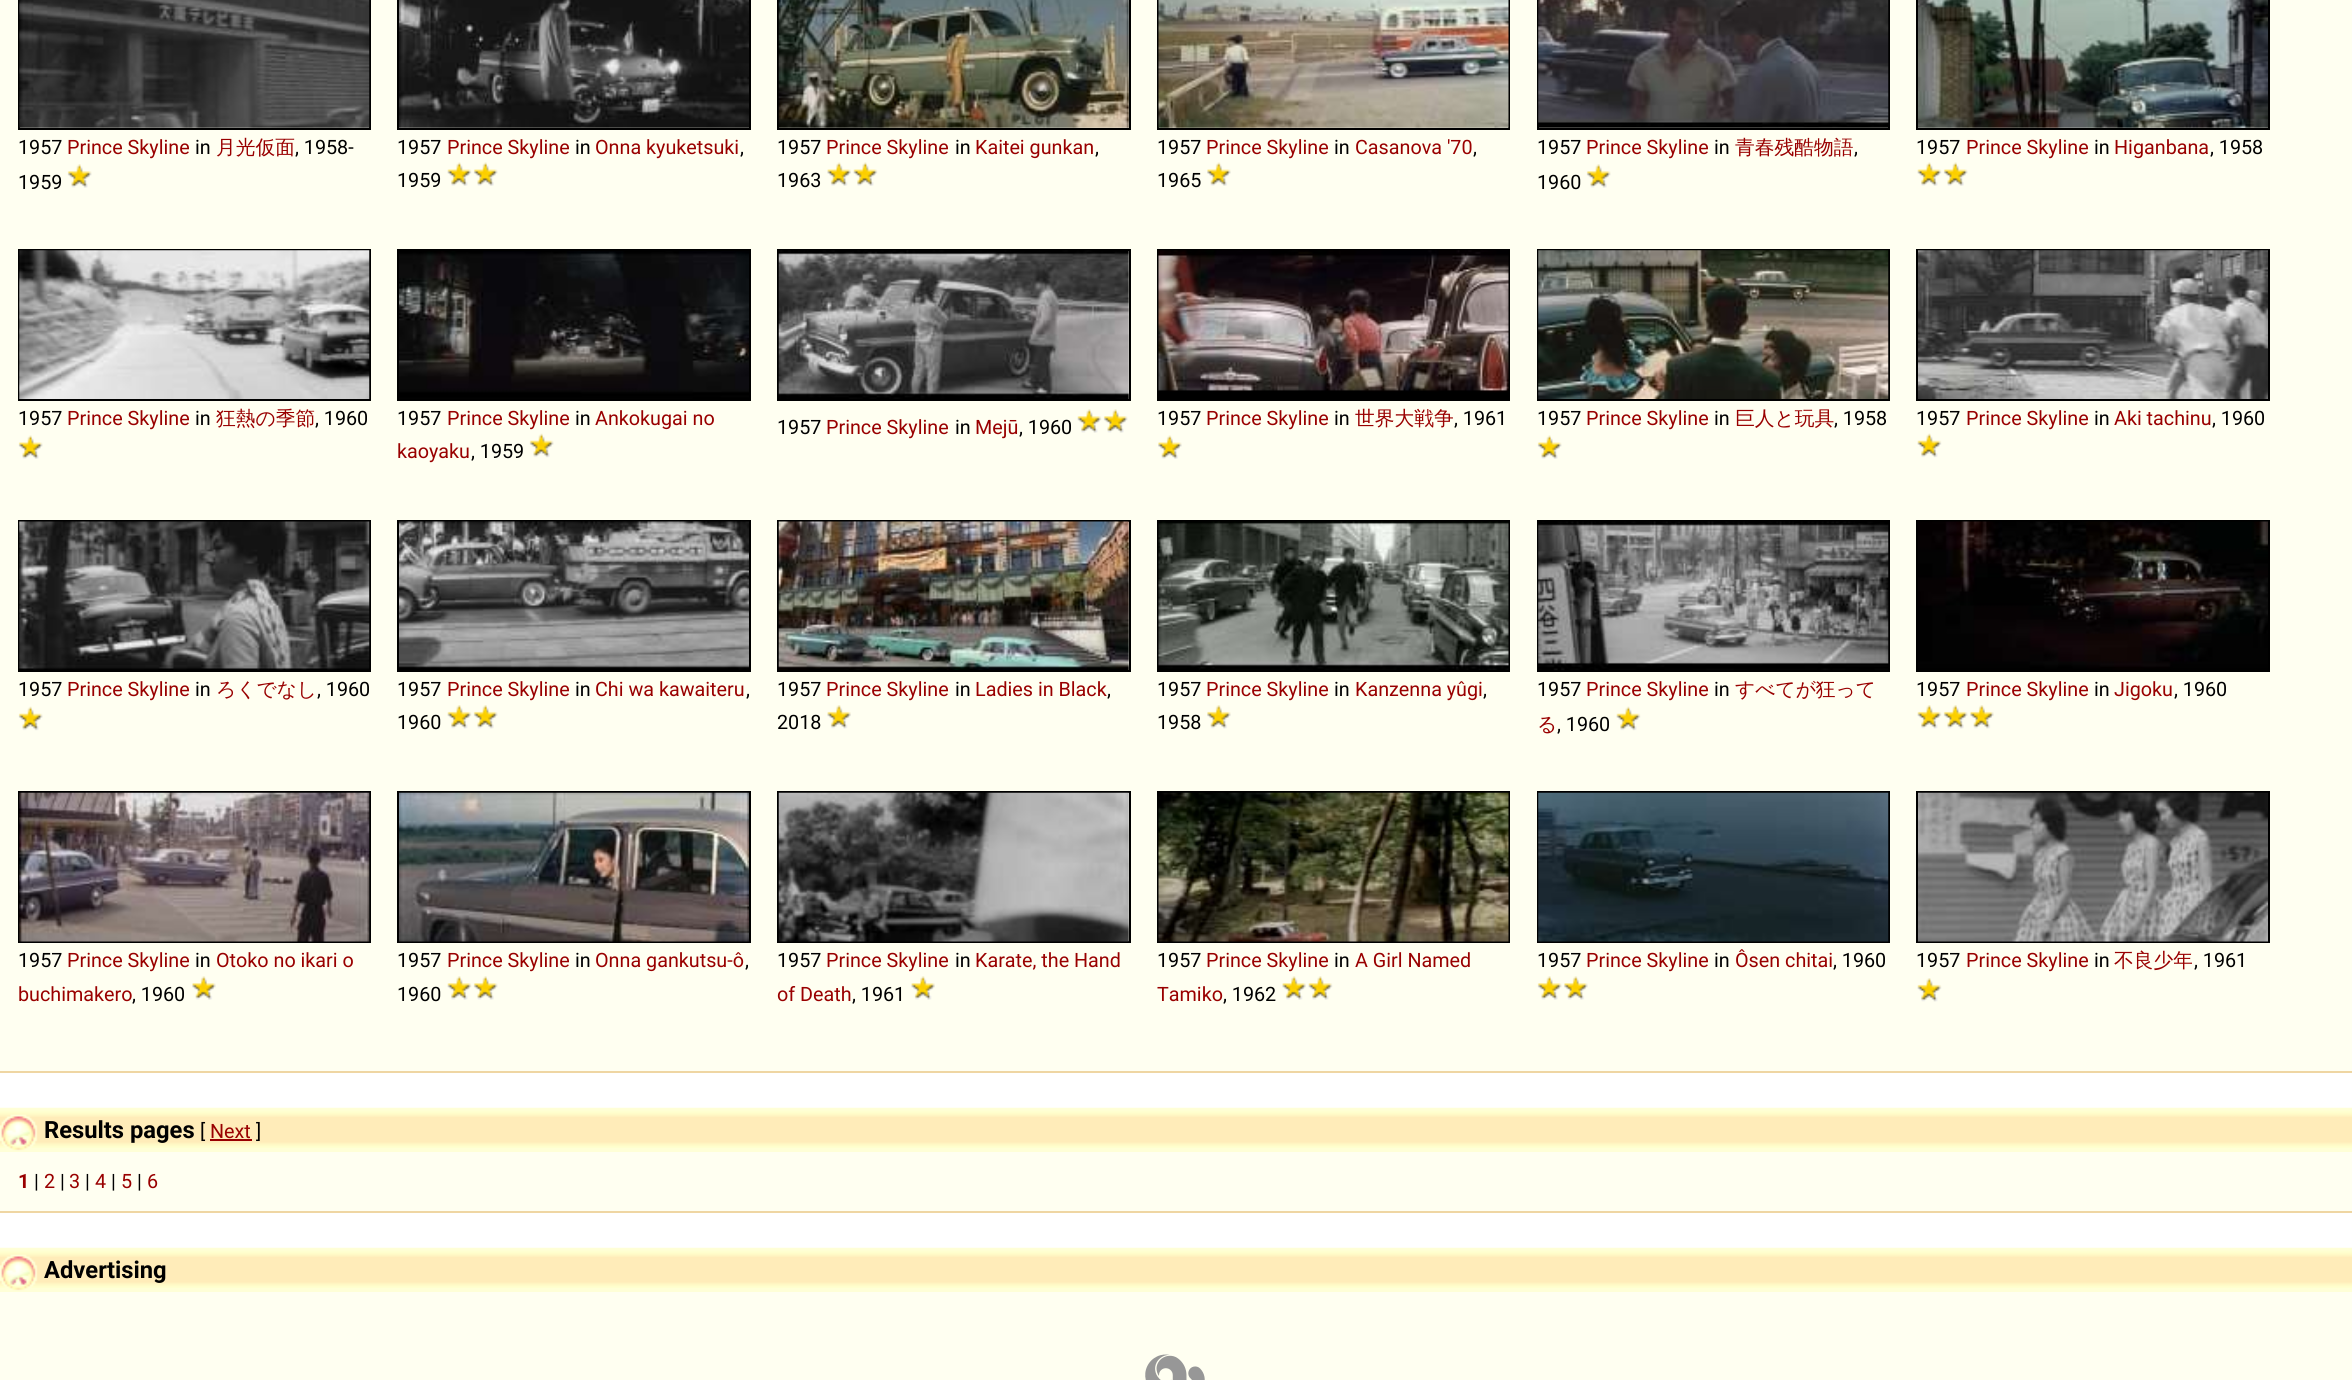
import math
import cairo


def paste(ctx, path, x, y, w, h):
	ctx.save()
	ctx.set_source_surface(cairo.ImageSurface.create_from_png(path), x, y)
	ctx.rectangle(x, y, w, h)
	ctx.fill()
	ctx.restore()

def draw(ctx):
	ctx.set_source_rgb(1, 1, 1)
	ctx.paint()
	ctx.set_source_rgb(1, 1, 0.945)
	ctx.rectangle(0, 0, 2352, 1071)
	ctx.fill()
	ctx.set_source_rgb(0.937, 0.839, 0.639)
	ctx.rectangle(0, 1071, 2352, 2)
	ctx.fill()
	ctx.rectangle(19, -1, 351, 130)
	ctx.set_source_rgb(0, 0, 0)
	ctx.stroke()
	paste(ctx, 'media/1.png', 19, 0, 351, 128)
	ctx.select_font_face('Roboto')
	ctx.set_font_size(19.75)
	ctx.move_to(18, 154)
	ctx.show_text('1957')
	ctx.set_source_rgb(0.6, 0, 0)
	ctx.move_to(67, 154)
	ctx.show_text('Prince Skyline')
	ctx.set_source_rgb(0, 0, 0)
	ctx.move_to(195, 154)
	ctx.show_text('in')
	ctx.select_font_face('WenQuanYi Zen Hei Medium')
	ctx.set_source_rgb(0.6, 0, 0)
	ctx.move_to(216, 154)
	ctx.show_text('月光仮面')
	ctx.select_font_face('Roboto')
	ctx.set_source_rgb(0, 0, 0)
	ctx.move_to(295, 154)
	ctx.show_text(', 1958-')
	ctx.move_to(18, 189)
	ctx.show_text('1959')
	paste(ctx, 'media/2.png', 67, 164, 25, 24)
	ctx.rectangle(398, -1, 352, 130)
	ctx.stroke()
	paste(ctx, 'media/3.png', 399, 0, 350, 128)
	ctx.move_to(397, 154)
	ctx.show_text('1957')
	ctx.set_source_rgb(0.6, 0, 0)
	ctx.move_to(447, 154)
	ctx.show_text('Prince Skyline')
	ctx.set_source_rgb(0, 0, 0)
	ctx.move_to(575, 154)
	ctx.show_text('in')
	ctx.set_source_rgb(0.6, 0, 0)
	ctx.move_to(595, 154)
	ctx.show_text('Onna kyuketsuki')
	ctx.set_source_rgb(0, 0, 0)
	ctx.move_to(740, 154)
	ctx.show_text(',')
	ctx.move_to(397, 187)
	ctx.show_text('1959')
	paste(ctx, 'media/4.png', 447, 162, 25, 24)
	paste(ctx, 'media/5.png', 473, 162, 25, 24)
	ctx.rectangle(778, -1, 352, 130)
	ctx.stroke()
	paste(ctx, 'media/6.png', 778, 0, 351, 128)
	ctx.move_to(777, 154)
	ctx.show_text('1957')
	ctx.set_source_rgb(0.6, 0, 0)
	ctx.move_to(826, 154)
	ctx.show_text('Prince Skyline')
	ctx.set_source_rgb(0, 0, 0)
	ctx.move_to(955, 154)
	ctx.show_text('in')
	ctx.set_source_rgb(0.6, 0, 0)
	ctx.move_to(975, 154)
	ctx.show_text('Kaitei gunkan')
	ctx.set_source_rgb(0, 0, 0)
	ctx.move_to(1095, 154)
	ctx.show_text(',')
	ctx.move_to(777, 187)
	ctx.show_text('1963')
	paste(ctx, 'media/7.png', 827, 162, 24, 24)
	paste(ctx, 'media/4.png', 853, 162, 25, 24)
	ctx.rectangle(1158, -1, 351, 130)
	ctx.stroke()
	paste(ctx, 'media/8.png', 1158, 0, 351, 128)
	ctx.move_to(1157, 154)
	ctx.show_text('1957')
	ctx.set_source_rgb(0.6, 0, 0)
	ctx.move_to(1206, 154)
	ctx.show_text('Prince Skyline')
	ctx.set_source_rgb(0, 0, 0)
	ctx.move_to(1334, 154)
	ctx.show_text('in')
	ctx.set_source_rgb(0.6, 0, 0)
	ctx.move_to(1355, 154)
	ctx.show_text('Casanova \'70')
	ctx.set_source_rgb(0, 0, 0)
	ctx.move_to(1473, 154)
	ctx.show_text(',')
	ctx.move_to(1157, 187)
	ctx.show_text('1965')
	paste(ctx, 'media/9.png', 1207, 162, 24, 24)
	ctx.rectangle(1538, -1, 351, 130)
	ctx.stroke()
	paste(ctx, 'media/10.png', 1538, 0, 351, 128)
	ctx.move_to(1537, 154)
	ctx.show_text('1957')
	ctx.set_source_rgb(0.6, 0, 0)
	ctx.move_to(1586, 154)
	ctx.show_text('Prince Skyline')
	ctx.set_source_rgb(0, 0, 0)
	ctx.move_to(1714, 154)
	ctx.show_text('in')
	ctx.select_font_face('WenQuanYi Zen Hei Medium')
	ctx.set_source_rgb(0.6, 0, 0)
	ctx.move_to(1735, 154)
	ctx.show_text('青春残酷物語')
	ctx.select_font_face('Roboto')
	ctx.set_source_rgb(0, 0, 0)
	ctx.move_to(1854, 154)
	ctx.show_text(',')
	ctx.move_to(1537, 189)
	ctx.show_text('1960')
	paste(ctx, 'media/11.png', 1586, 164, 25, 24)
	ctx.rectangle(1917, -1, 352, 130)
	ctx.stroke()
	paste(ctx, 'media/12.png', 1918, 0, 350, 128)
	ctx.move_to(1916, 154)
	ctx.show_text('1957')
	ctx.set_source_rgb(0.6, 0, 0)
	ctx.move_to(1966, 154)
	ctx.show_text('Prince Skyline')
	ctx.set_source_rgb(0, 0, 0)
	ctx.move_to(2094, 154)
	ctx.show_text('in')
	ctx.set_source_rgb(0.6, 0, 0)
	ctx.move_to(2114, 154)
	ctx.show_text('Higanbana')
	ctx.set_source_rgb(0, 0, 0)
	ctx.move_to(2210, 154)
	ctx.show_text(', 1958')
	paste(ctx, 'media/4.png', 1917, 162, 25, 24)
	paste(ctx, 'media/5.png', 1943, 162, 25, 24)
	ctx.rectangle(19, 250, 351, 150)
	ctx.stroke()
	paste(ctx, 'media/13.png', 19, 250, 351, 149)
	ctx.move_to(18, 425)
	ctx.show_text('1957')
	ctx.set_source_rgb(0.6, 0, 0)
	ctx.move_to(67, 425)
	ctx.show_text('Prince Skyline')
	ctx.set_source_rgb(0, 0, 0)
	ctx.move_to(195, 425)
	ctx.show_text('in')
	ctx.select_font_face('WenQuanYi Zen Hei Medium')
	ctx.set_source_rgb(0.6, 0, 0)
	ctx.move_to(216, 425)
	ctx.show_text('狂熱の季節')
	ctx.select_font_face('Roboto')
	ctx.set_source_rgb(0, 0, 0)
	ctx.move_to(315, 425)
	ctx.show_text(', 1960')
	paste(ctx, 'media/14.png', 18, 435, 25, 24)
	ctx.rectangle(398, 250, 352, 150)
	ctx.stroke()
	paste(ctx, 'media/15.png', 399, 251, 350, 148)
	ctx.move_to(397, 425)
	ctx.show_text('1957')
	ctx.set_source_rgb(0.6, 0, 0)
	ctx.move_to(447, 425)
	ctx.show_text('Prince Skyline')
	ctx.set_source_rgb(0, 0, 0)
	ctx.move_to(575, 425)
	ctx.show_text('in')
	ctx.set_source_rgb(0.6, 0, 0)
	ctx.move_to(595, 425)
	ctx.show_text('Ankokugai no')
	ctx.move_to(397, 458)
	ctx.show_text('kaoyaku')
	ctx.set_source_rgb(0, 0, 0)
	ctx.move_to(471, 458)
	ctx.show_text(', 1959')
	paste(ctx, 'media/16.png', 529, 433, 25, 25)
	ctx.rectangle(778, 250, 352, 150)
	ctx.stroke()
	paste(ctx, 'media/17.png', 778, 250, 351, 149)
	ctx.move_to(777, 434)
	ctx.show_text('1957')
	ctx.set_source_rgb(0.6, 0, 0)
	ctx.move_to(826, 434)
	ctx.show_text('Prince Skyline')
	ctx.set_source_rgb(0, 0, 0)
	ctx.move_to(955, 434)
	ctx.show_text('in')
	ctx.set_source_rgb(0.6, 0, 0)
	ctx.move_to(975, 434)
	ctx.show_text('Mejū')
	ctx.set_source_rgb(0, 0, 0)
	ctx.move_to(1019, 434)
	ctx.show_text(', 1960')
	paste(ctx, 'media/18.png', 1077, 409, 25, 24)
	paste(ctx, 'media/2.png', 1103, 409, 25, 24)
	ctx.rectangle(1158, 250, 351, 150)
	ctx.stroke()
	paste(ctx, 'media/19.png', 1158, 250, 351, 149)
	ctx.move_to(1157, 425)
	ctx.show_text('1957')
	ctx.set_source_rgb(0.6, 0, 0)
	ctx.move_to(1206, 425)
	ctx.show_text('Prince Skyline')
	ctx.set_source_rgb(0, 0, 0)
	ctx.move_to(1334, 425)
	ctx.show_text('in')
	ctx.select_font_face('WenQuanYi Zen Hei Medium')
	ctx.set_source_rgb(0.6, 0, 0)
	ctx.move_to(1355, 425)
	ctx.show_text('世界大戦争')
	ctx.select_font_face('Roboto')
	ctx.set_source_rgb(0, 0, 0)
	ctx.move_to(1454, 425)
	ctx.show_text(', 1961')
	paste(ctx, 'media/9.png', 1158, 435, 24, 24)
	ctx.rectangle(1538, 250, 351, 150)
	ctx.stroke()
	paste(ctx, 'media/20.png', 1538, 250, 351, 149)
	ctx.move_to(1537, 425)
	ctx.show_text('1957')
	ctx.set_source_rgb(0.6, 0, 0)
	ctx.move_to(1586, 425)
	ctx.show_text('Prince Skyline')
	ctx.set_source_rgb(0, 0, 0)
	ctx.move_to(1714, 425)
	ctx.show_text('in')
	ctx.select_font_face('WenQuanYi Zen Hei Medium')
	ctx.set_source_rgb(0.6, 0, 0)
	ctx.move_to(1735, 425)
	ctx.show_text('巨人と玩具')
	ctx.select_font_face('Roboto')
	ctx.set_source_rgb(0, 0, 0)
	ctx.move_to(1834, 425)
	ctx.show_text(', 1958')
	paste(ctx, 'media/21.png', 1537, 435, 25, 24)
	ctx.rectangle(1917, 250, 352, 150)
	ctx.stroke()
	paste(ctx, 'media/22.png', 1918, 250, 350, 149)
	ctx.move_to(1916, 425)
	ctx.show_text('1957')
	ctx.set_source_rgb(0.6, 0, 0)
	ctx.move_to(1966, 425)
	ctx.show_text('Prince Skyline')
	ctx.set_source_rgb(0, 0, 0)
	ctx.move_to(2094, 425)
	ctx.show_text('in')
	ctx.set_source_rgb(0.6, 0, 0)
	ctx.move_to(2114, 425)
	ctx.show_text('Aki tachinu')
	ctx.set_source_rgb(0, 0, 0)
	ctx.move_to(2212, 425)
	ctx.show_text(', 1960')
	paste(ctx, 'media/23.png', 1917, 433, 25, 25)
	ctx.rectangle(19, 521, 351, 150)
	ctx.stroke()
	paste(ctx, 'media/24.png', 19, 521, 351, 149)
	ctx.move_to(18, 696)
	ctx.show_text('1957')
	ctx.set_source_rgb(0.6, 0, 0)
	ctx.move_to(67, 696)
	ctx.show_text('Prince Skyline')
	ctx.set_source_rgb(0, 0, 0)
	ctx.move_to(195, 696)
	ctx.show_text('in')
	ctx.select_font_face('WenQuanYi Zen Hei Medium')
	ctx.set_source_rgb(0.6, 0, 0)
	ctx.move_to(216, 696)
	ctx.show_text('ろくでなし')
	ctx.select_font_face('Roboto')
	ctx.set_source_rgb(0, 0, 0)
	ctx.move_to(317, 696)
	ctx.show_text(', 1960')
	paste(ctx, 'media/16.png', 18, 706, 25, 25)
	ctx.rectangle(398, 521, 352, 150)
	ctx.stroke()
	paste(ctx, 'media/25.png', 399, 521, 350, 149)
	ctx.move_to(397, 696)
	ctx.show_text('1957')
	ctx.set_source_rgb(0.6, 0, 0)
	ctx.move_to(447, 696)
	ctx.show_text('Prince Skyline')
	ctx.set_source_rgb(0, 0, 0)
	ctx.move_to(575, 696)
	ctx.show_text('in')
	ctx.set_source_rgb(0.6, 0, 0)
	ctx.move_to(595, 696)
	ctx.show_text('Chi wa kawaiteru')
	ctx.set_source_rgb(0, 0, 0)
	ctx.move_to(746, 696)
	ctx.show_text(',')
	ctx.move_to(397, 729)
	ctx.show_text('1960')
	paste(ctx, 'media/26.png', 447, 705, 25, 24)
	paste(ctx, 'media/27.png', 473, 705, 25, 24)
	ctx.rectangle(778, 521, 352, 150)
	ctx.stroke()
	paste(ctx, 'media/28.png', 778, 521, 351, 149)
	ctx.move_to(777, 696)
	ctx.show_text('1957')
	ctx.set_source_rgb(0.6, 0, 0)
	ctx.move_to(826, 696)
	ctx.show_text('Prince Skyline')
	ctx.set_source_rgb(0, 0, 0)
	ctx.move_to(955, 696)
	ctx.show_text('in')
	ctx.set_source_rgb(0.6, 0, 0)
	ctx.move_to(975, 696)
	ctx.show_text('Ladies in Black')
	ctx.set_source_rgb(0, 0, 0)
	ctx.move_to(1107, 696)
	ctx.show_text(',')
	ctx.move_to(777, 729)
	ctx.show_text('2018')
	paste(ctx, 'media/29.png', 827, 705, 24, 24)
	ctx.rectangle(1158, 521, 351, 150)
	ctx.stroke()
	paste(ctx, 'media/30.png', 1158, 521, 351, 149)
	ctx.move_to(1157, 696)
	ctx.show_text('1957')
	ctx.set_source_rgb(0.6, 0, 0)
	ctx.move_to(1206, 696)
	ctx.show_text('Prince Skyline')
	ctx.set_source_rgb(0, 0, 0)
	ctx.move_to(1334, 696)
	ctx.show_text('in')
	ctx.set_source_rgb(0.6, 0, 0)
	ctx.move_to(1355, 696)
	ctx.show_text('Kanzenna yûgi')
	ctx.set_source_rgb(0, 0, 0)
	ctx.move_to(1483, 696)
	ctx.show_text(',')
	ctx.move_to(1157, 729)
	ctx.show_text('1958')
	paste(ctx, 'media/31.png', 1207, 705, 24, 24)
	ctx.rectangle(1538, 521, 351, 150)
	ctx.stroke()
	paste(ctx, 'media/32.png', 1538, 521, 351, 150)
	ctx.move_to(1537, 696)
	ctx.show_text('1957')
	ctx.set_source_rgb(0.6, 0, 0)
	ctx.move_to(1586, 696)
	ctx.show_text('Prince Skyline')
	ctx.set_source_rgb(0, 0, 0)
	ctx.move_to(1714, 696)
	ctx.show_text('in')
	ctx.select_font_face('WenQuanYi Zen Hei Medium')
	ctx.set_source_rgb(0.6, 0, 0)
	ctx.move_to(1735, 696)
	ctx.show_text('すべてが狂って')
	ctx.move_to(1537, 731)
	ctx.show_text('る')
	ctx.select_font_face('Roboto')
	ctx.set_source_rgb(0, 0, 0)
	ctx.move_to(1557, 731)
	ctx.show_text(', 1960')
	paste(ctx, 'media/33.png', 1616, 706, 25, 25)
	ctx.rectangle(1917, 521, 352, 150)
	ctx.stroke()
	paste(ctx, 'media/34.png', 1918, 521, 350, 149)
	ctx.move_to(1916, 696)
	ctx.show_text('1957')
	ctx.set_source_rgb(0.6, 0, 0)
	ctx.move_to(1966, 696)
	ctx.show_text('Prince Skyline')
	ctx.set_source_rgb(0, 0, 0)
	ctx.move_to(2094, 696)
	ctx.show_text('in')
	ctx.set_source_rgb(0.6, 0, 0)
	ctx.move_to(2114, 696)
	ctx.show_text('Jigoku')
	ctx.set_source_rgb(0, 0, 0)
	ctx.move_to(2174, 696)
	ctx.show_text(', 1960')
	paste(ctx, 'media/26.png', 1917, 705, 25, 24)
	paste(ctx, 'media/27.png', 1943, 705, 25, 24)
	paste(ctx, 'media/35.png', 1970, 705, 24, 24)
	ctx.rectangle(19, 792, 351, 150)
	ctx.stroke()
	paste(ctx, 'media/36.png', 19, 792, 351, 150)
	ctx.move_to(18, 967)
	ctx.show_text('1957')
	ctx.set_source_rgb(0.6, 0, 0)
	ctx.move_to(67, 967)
	ctx.show_text('Prince Skyline')
	ctx.set_source_rgb(0, 0, 0)
	ctx.move_to(195, 967)
	ctx.show_text('in')
	ctx.set_source_rgb(0.6, 0, 0)
	ctx.move_to(216, 967)
	ctx.show_text('Otoko no ikari o')
	ctx.move_to(18, 1001)
	ctx.show_text('buchimakero')
	ctx.set_source_rgb(0, 0, 0)
	ctx.move_to(132, 1001)
	ctx.show_text(', 1960')
	paste(ctx, 'media/37.png', 192, 976, 24, 24)
	ctx.rectangle(398, 792, 352, 150)
	ctx.stroke()
	paste(ctx, 'media/38.png', 399, 792, 350, 150)
	ctx.move_to(397, 967)
	ctx.show_text('1957')
	ctx.set_source_rgb(0.6, 0, 0)
	ctx.move_to(447, 967)
	ctx.show_text('Prince Skyline')
	ctx.set_source_rgb(0, 0, 0)
	ctx.move_to(575, 967)
	ctx.show_text('in')
	ctx.set_source_rgb(0.6, 0, 0)
	ctx.move_to(595, 967)
	ctx.show_text('Onna gankutsu-ô')
	ctx.set_source_rgb(0, 0, 0)
	ctx.move_to(745, 967)
	ctx.show_text(',')
	ctx.move_to(397, 1001)
	ctx.show_text('1960')
	paste(ctx, 'media/18.png', 447, 976, 25, 24)
	paste(ctx, 'media/11.png', 473, 976, 25, 24)
	ctx.rectangle(778, 792, 352, 150)
	ctx.stroke()
	paste(ctx, 'media/39.png', 778, 792, 351, 150)
	ctx.move_to(777, 967)
	ctx.show_text('1957')
	ctx.set_source_rgb(0.6, 0, 0)
	ctx.move_to(826, 967)
	ctx.show_text('Prince Skyline')
	ctx.set_source_rgb(0, 0, 0)
	ctx.move_to(955, 967)
	ctx.show_text('in')
	ctx.set_source_rgb(0.6, 0, 0)
	ctx.move_to(975, 967)
	ctx.show_text('Karate, the Hand')
	ctx.move_to(777, 1001)
	ctx.show_text('of Death')
	ctx.set_source_rgb(0, 0, 0)
	ctx.move_to(852, 1001)
	ctx.show_text(', 1961')
	paste(ctx, 'media/40.png', 911, 976, 24, 24)
	ctx.rectangle(1158, 792, 351, 150)
	ctx.stroke()
	paste(ctx, 'media/41.png', 1158, 792, 351, 150)
	ctx.move_to(1157, 967)
	ctx.show_text('1957')
	ctx.set_source_rgb(0.6, 0, 0)
	ctx.move_to(1206, 967)
	ctx.show_text('Prince Skyline')
	ctx.set_source_rgb(0, 0, 0)
	ctx.move_to(1334, 967)
	ctx.show_text('in')
	ctx.set_source_rgb(0.6, 0, 0)
	ctx.move_to(1355, 967)
	ctx.show_text('A Girl Named')
	ctx.move_to(1157, 1001)
	ctx.show_text('Tamiko')
	ctx.set_source_rgb(0, 0, 0)
	ctx.move_to(1223, 1001)
	ctx.show_text(', 1962')
	paste(ctx, 'media/42.png', 1282, 976, 24, 24)
	paste(ctx, 'media/18.png', 1308, 976, 25, 24)
	ctx.rectangle(1538, 792, 351, 150)
	ctx.stroke()
	paste(ctx, 'media/43.png', 1538, 792, 351, 150)
	ctx.move_to(1537, 967)
	ctx.show_text('1957')
	ctx.set_source_rgb(0.6, 0, 0)
	ctx.move_to(1586, 967)
	ctx.show_text('Prince Skyline')
	ctx.set_source_rgb(0, 0, 0)
	ctx.move_to(1714, 967)
	ctx.show_text('in')
	ctx.set_source_rgb(0.6, 0, 0)
	ctx.move_to(1735, 967)
	ctx.show_text('Ôsen chitai')
	ctx.set_source_rgb(0, 0, 0)
	ctx.move_to(1833, 967)
	ctx.show_text(', 1960')
	paste(ctx, 'media/44.png', 1537, 976, 25, 24)
	paste(ctx, 'media/45.png', 1564, 976, 24, 24)
	ctx.rectangle(1917, 792, 352, 150)
	ctx.stroke()
	paste(ctx, 'media/46.png', 1918, 792, 350, 150)
	ctx.move_to(1916, 967)
	ctx.show_text('1957')
	ctx.set_source_rgb(0.6, 0, 0)
	ctx.move_to(1966, 967)
	ctx.show_text('Prince Skyline')
	ctx.set_source_rgb(0, 0, 0)
	ctx.move_to(2094, 967)
	ctx.show_text('in')
	ctx.select_font_face('WenQuanYi Zen Hei Medium')
	ctx.set_source_rgb(0.6, 0, 0)
	ctx.move_to(2114, 967)
	ctx.show_text('不良少年')
	ctx.select_font_face('Roboto')
	ctx.set_source_rgb(0, 0, 0)
	ctx.move_to(2194, 967)
	ctx.show_text(', 1961')
	paste(ctx, 'media/26.png', 1917, 978, 25, 24)
	ctx.set_source_rgb(1, 1, 0.945)
	ctx.rectangle(0, 1152, 2352, 59)
	ctx.fill()
	ctx.set_source_rgb(0.937, 0.839, 0.639)
	ctx.rectangle(0, 1211, 2352, 2)
	ctx.fill()
	ctx.set_source_rgb(1, 1, 0.843)
	ctx.rectangle(0, 1148, 2352, 4)
	ctx.fill()
	paste(ctx, 'media/47.png', 0, 1107, 2352, 41)
	paste(ctx, 'media/48.png', 0, 1114, 38, 37)
	ctx.select_font_face('Roboto', cairo.FONT_SLANT_NORMAL, cairo.FONT_WEIGHT_BOLD)
	ctx.set_font_size(23.75)
	ctx.set_source_rgb(0, 0, 0)
	ctx.move_to(44, 1138)
	ctx.show_text('Results pages')
	ctx.select_font_face('Roboto')
	ctx.set_font_size(19.75)
	ctx.move_to(200, 1138)
	ctx.show_text('[')
	ctx.set_source_rgb(0.6, 0, 0)
	ctx.move_to(210, 1138)
	ctx.show_text('Next')
	ctx.rectangle(210, 1139, 42, 2)
	ctx.fill()
	ctx.set_source_rgb(0, 0, 0)
	ctx.move_to(256, 1138)
	ctx.show_text(']')
	ctx.select_font_face('Roboto', cairo.FONT_SLANT_NORMAL, cairo.FONT_WEIGHT_BOLD)
	ctx.set_source_rgb(0.6, 0, 0)
	ctx.move_to(18, 1188)
	ctx.show_text('1')
	ctx.select_font_face('Roboto')
	ctx.set_source_rgb(0, 0, 0)
	ctx.move_to(34, 1188)
	ctx.show_text('|')
	ctx.set_source_rgb(0.6, 0, 0)
	ctx.move_to(44, 1188)
	ctx.show_text('2')
	ctx.set_source_rgb(0, 0, 0)
	ctx.move_to(60, 1188)
	ctx.show_text('|')
	ctx.set_source_rgb(0.6, 0, 0)
	ctx.move_to(69, 1188)
	ctx.show_text('3')
	ctx.set_source_rgb(0, 0, 0)
	ctx.move_to(85, 1188)
	ctx.show_text('|')
	ctx.set_source_rgb(0.6, 0, 0)
	ctx.move_to(95, 1188)
	ctx.show_text('4')
	ctx.set_source_rgb(0, 0, 0)
	ctx.move_to(111, 1188)
	ctx.show_text('|')
	ctx.set_source_rgb(0.6, 0, 0)
	ctx.move_to(121, 1188)
	ctx.show_text('5')
	ctx.set_source_rgb(0, 0, 0)
	ctx.move_to(137, 1188)
	ctx.show_text('|')
	ctx.set_source_rgb(0.6, 0, 0)
	ctx.move_to(147, 1188)
	ctx.show_text('6')
	ctx.set_source_rgb(1, 1, 0.945)
	ctx.rectangle(0, 1292, 2352, 88)
	ctx.fill()
	ctx.set_source_rgb(1, 1, 0.843)
	ctx.rectangle(0, 1288, 2352, 4)
	ctx.fill()
	paste(ctx, 'media/47.png', 0, 1247, 2352, 41)
	paste(ctx, 'media/48.png', 0, 1254, 38, 37)
	ctx.select_font_face('Roboto', cairo.FONT_SLANT_NORMAL, cairo.FONT_WEIGHT_BOLD)
	ctx.set_font_size(23.75)
	ctx.set_source_rgb(0, 0, 0)
	ctx.move_to(44, 1278)
	ctx.show_text('Advertising')
	paste(ctx, 'media/49.png', 1145, 1354, 60, 26)


surface = cairo.ImageSurface(cairo.FORMAT_RGB24, 2352, 1380)
ctx = cairo.Context(surface)
options = cairo.FontOptions()
options.set_hint_metrics(cairo.HINT_METRICS_OFF)
options.set_hint_style(cairo.HINT_STYLE_NONE)
ctx.set_font_options(options)
ctx.set_miter_limit(4)
draw(ctx)
surface.write_to_png('image.png')
